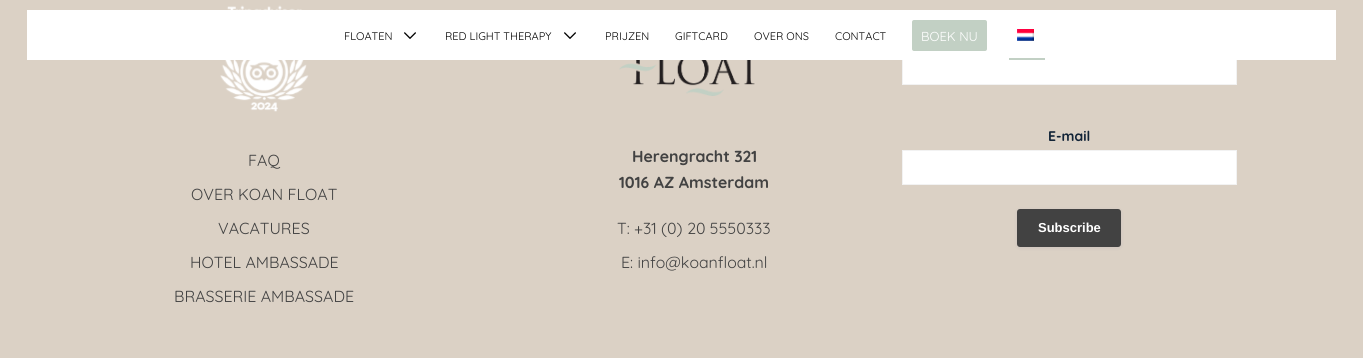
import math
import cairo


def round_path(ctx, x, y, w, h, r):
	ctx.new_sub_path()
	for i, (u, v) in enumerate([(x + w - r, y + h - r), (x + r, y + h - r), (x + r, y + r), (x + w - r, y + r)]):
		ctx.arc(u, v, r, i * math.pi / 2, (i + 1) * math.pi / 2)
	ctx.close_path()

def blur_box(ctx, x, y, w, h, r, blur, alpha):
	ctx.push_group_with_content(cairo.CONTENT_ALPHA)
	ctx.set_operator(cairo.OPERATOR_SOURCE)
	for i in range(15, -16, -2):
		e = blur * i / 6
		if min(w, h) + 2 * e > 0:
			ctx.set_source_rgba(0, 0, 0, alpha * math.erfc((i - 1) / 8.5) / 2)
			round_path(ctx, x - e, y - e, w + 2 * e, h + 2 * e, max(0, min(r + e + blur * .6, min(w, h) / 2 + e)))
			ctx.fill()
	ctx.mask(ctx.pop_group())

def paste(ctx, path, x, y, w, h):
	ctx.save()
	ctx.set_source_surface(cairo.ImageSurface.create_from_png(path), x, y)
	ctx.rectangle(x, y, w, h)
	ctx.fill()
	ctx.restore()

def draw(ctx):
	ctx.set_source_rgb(0.859, 0.82, 0.773)
	ctx.paint()
	paste(ctx, 'media/3.png', 220, 5, 89, 107)
	ctx.set_source_rgb(1, 1, 1)
	ctx.rectangle(903, 60, 333, 24)
	ctx.fill()
	ctx.rectangle(902.5, 50.5, 334, 34)
	ctx.set_source_rgb(0.949, 0.949, 0.949)
	ctx.set_line_width(1)
	ctx.stroke()
	ctx.set_source_rgb(1, 1, 1)
	ctx.rectangle(27, 10, 1309, 50)
	ctx.fill()
	ctx.select_font_face('Quicksand')
	ctx.set_font_size(11)
	ctx.set_source_rgb(0, 0, 0)
	ctx.move_to(344, 40)
	ctx.show_text('FLOATEN')
	paste(ctx, 'media/1.png', 404, 32, 12, 7)
	ctx.move_to(445, 40)
	ctx.show_text('RED LIGHT THERAPY')
	paste(ctx, 'media/1.png', 564, 32, 12, 7)
	for x, y, s in [
		(605, 40, 'PRIJZEN'),
		(675, 40, 'GIFTCARD'),
		(754, 40, 'OVER ONS'),
		(835, 40, 'CONTACT'),
	]:
		ctx.move_to(x, y)
		ctx.show_text(s)
	ctx.set_source_rgb(0.761, 0.816, 0.769)
	round_path(ctx, 912, 20, 75, 31, 2)
	ctx.fill()
	ctx.set_font_size(13)
	ctx.set_source_rgb(1, 1, 1)
	ctx.move_to(921, 41)
	ctx.show_text('BOEK NU')
	paste(ctx, 'media/2.png', 1017, 29, 17, 12)
	ctx.set_source_rgb(0.761, 0.816, 0.769)
	ctx.rectangle(1009, 58, 36, 2)
	ctx.fill()
	ctx.set_font_size(16)
	ctx.set_source_rgb(0.259, 0.259, 0.259)
	for x, y, s in [
		(248, 166, 'FAQ'),
		(191, 200, 'OVER KOAN FLOAT'),
		(218, 234, 'VACATURES'),
		(190, 268, 'HOTEL AMBASSADE'),
		(174, 302, 'BRASSERIE AMBASSADE'),
	]:
		ctx.move_to(x, y)
		ctx.show_text(s)
	paste(ctx, 'media/4.png', 619, 60, 136, 36)
	ctx.select_font_face('Quicksand', cairo.FONT_SLANT_NORMAL, cairo.FONT_WEIGHT_BOLD)
	ctx.move_to(632, 162)
	ctx.show_text('Herengracht 321')
	ctx.move_to(619, 188)
	ctx.show_text('1016 AZ Amsterdam')
	ctx.select_font_face('Quicksand')
	ctx.move_to(617, 234)
	ctx.show_text('T: +31 (0) 20 5550333')
	ctx.move_to(621, 268)
	ctx.show_text('E: info@koanfloat.nl')
	ctx.select_font_face('Quicksand', cairo.FONT_SLANT_NORMAL, cairo.FONT_WEIGHT_BOLD)
	ctx.set_font_size(14)
	ctx.set_source_rgb(0.067, 0.137, 0.216)
	ctx.move_to(1048, 141)
	ctx.show_text('E-mail')
	ctx.set_source_rgb(1, 1, 1)
	ctx.rectangle(902.5, 150.5, 334, 34)
	ctx.fill_preserve()
	ctx.set_source_rgb(0.949, 0.949, 0.949)
	ctx.stroke()
	ctx.set_source_rgb(0.071, 0.098, 0.38)
	blur_box(ctx, 1017, 210, 104, 38, 3, 2, 0.08)
	ctx.set_source_rgb(0.259, 0.259, 0.259)
	round_path(ctx, 1017, 209, 104, 38, 3)
	ctx.fill()
	ctx.select_font_face('Liberation Sans', cairo.FONT_SLANT_NORMAL, cairo.FONT_WEIGHT_BOLD)
	ctx.set_font_size(13)
	ctx.set_source_rgb(1, 1, 1)
	ctx.move_to(1038, 232)
	ctx.show_text('Subscribe')


surface = cairo.ImageSurface(cairo.FORMAT_RGB24, 1363, 358)
ctx = cairo.Context(surface)
options = cairo.FontOptions()
options.set_hint_metrics(cairo.HINT_METRICS_OFF)
options.set_hint_style(cairo.HINT_STYLE_NONE)
ctx.set_font_options(options)
ctx.set_miter_limit(4)
draw(ctx)
surface.write_to_png('image.png')
